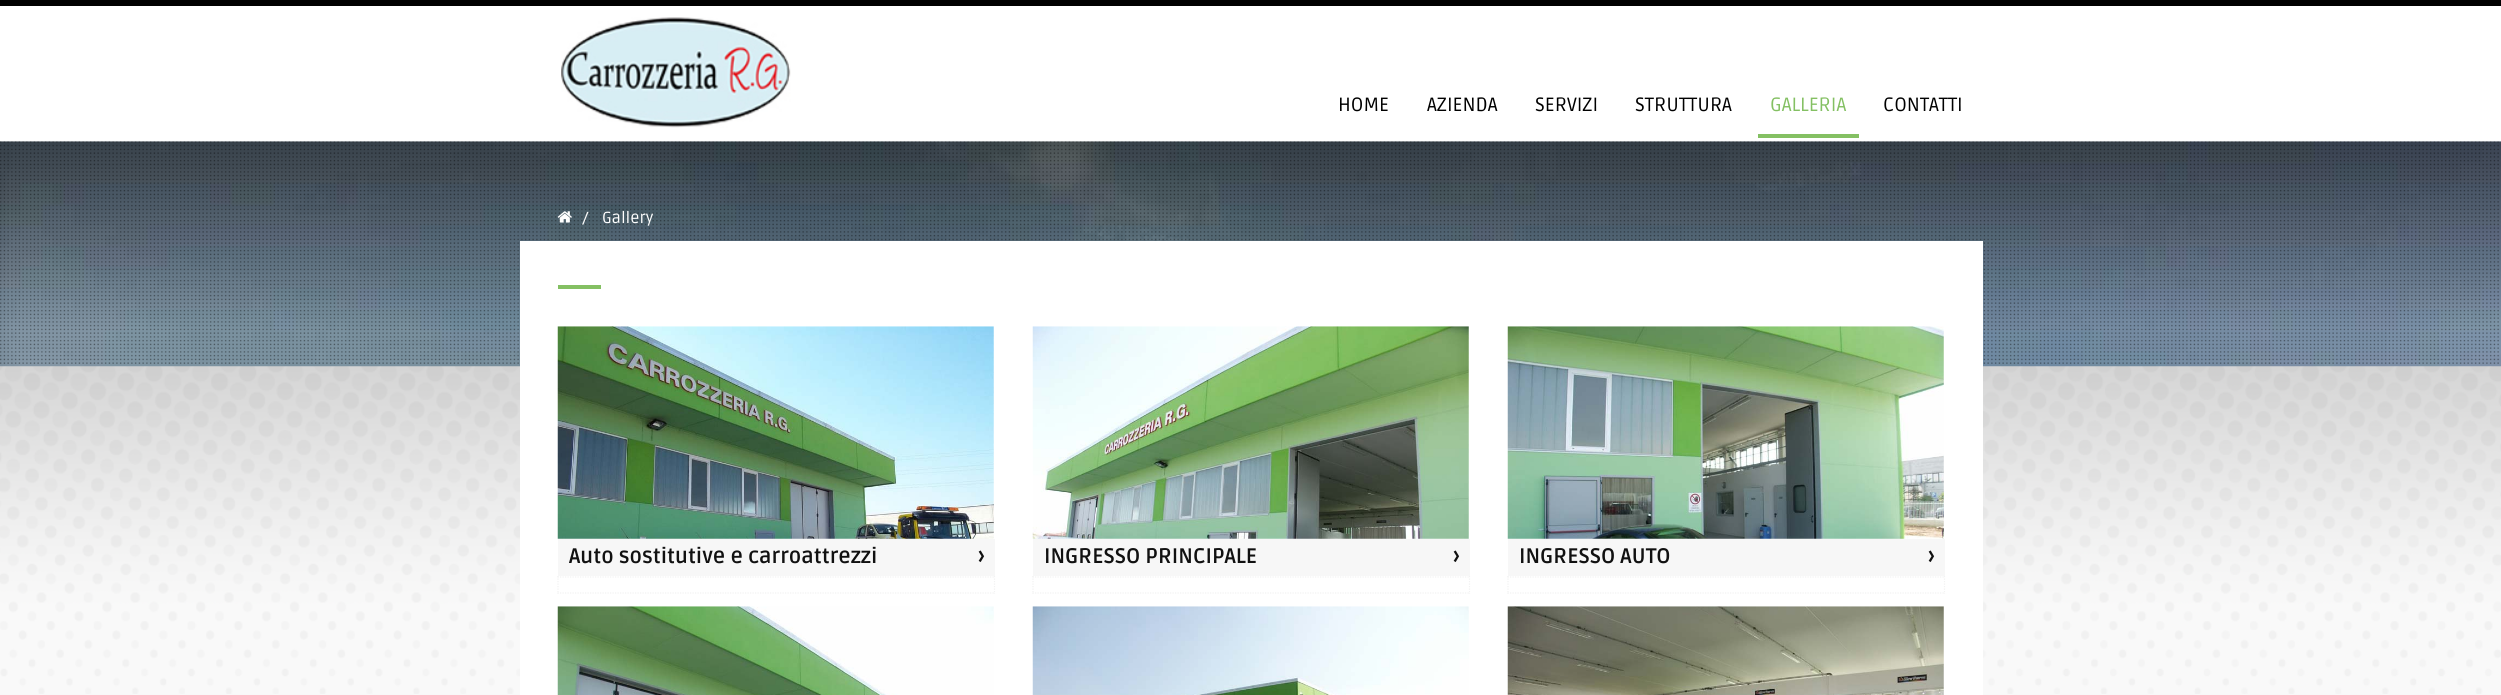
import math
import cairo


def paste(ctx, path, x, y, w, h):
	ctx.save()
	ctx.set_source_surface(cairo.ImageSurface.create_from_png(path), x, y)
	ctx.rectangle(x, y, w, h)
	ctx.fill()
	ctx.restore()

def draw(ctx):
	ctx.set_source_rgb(1, 1, 1)
	ctx.paint()
	ctx.set_source_rgb(0, 0, 0)
	ctx.rectangle(0, 0, 2501, 6)
	ctx.fill()
	paste(ctx, 'media/1.png', 561, 17, 230, 111)
	ctx.select_font_face('Ruda')
	ctx.set_font_size(19.25)
	for x, y, s in [
		(1338, 111, 'HOME'),
		(1427, 111, 'AZIENDA'),
		(1535, 111, 'SERVIZI'),
		(1635, 111, 'STRUTTURA'),
	]:
		ctx.move_to(x, y)
		ctx.show_text(s)
	ctx.set_source_rgb(0.518, 0.753, 0.388)
	ctx.rectangle(1758, 134, 101, 4)
	ctx.fill()
	ctx.move_to(1770, 111)
	ctx.show_text('GALLERIA')
	ctx.set_source_rgb(0, 0, 0)
	ctx.move_to(1883, 111)
	ctx.show_text('CONTATTI')
	paste(ctx, 'media/5.png', 0, 366, 2501, 328)
	paste(ctx, 'media/2.png', 0, 141, 2501, 226)
	paste(ctx, 'media/3.png', 0, 141, 2499, 223)
	paste(ctx, 'media/4.png', 557, 211, 15, 12)
	ctx.set_font_size(16)
	ctx.set_source_rgb(0.976, 0.976, 0.976)
	ctx.move_to(582, 223)
	ctx.show_text('/')
	ctx.set_source_rgb(1, 1, 1)
	ctx.move_to(602, 223)
	ctx.show_text('Gallery')
	ctx.set_source_rgb(0.969, 0.969, 0.969)
	ctx.rectangle(0, 694, 2501, 1)
	ctx.fill()
	ctx.set_source_rgb(1, 1, 1)
	ctx.rectangle(520, 241, 1463, 454)
	ctx.fill()
	ctx.set_source_rgb(0.518, 0.753, 0.388)
	ctx.rectangle(558, 285, 43, 4)
	ctx.fill()
	paste(ctx, 'media/6.png', 557, 326, 437, 213)
	ctx.set_source_rgb(0.965, 0.965, 0.965)
	ctx.rectangle(558, 539, 437, 37)
	ctx.fill()
	ctx.select_font_face('Ruda', cairo.FONT_SLANT_NORMAL, cairo.FONT_WEIGHT_BOLD)
	ctx.set_font_size(21)
	ctx.set_source_rgb(0.067, 0.067, 0.067)
	ctx.move_to(569, 563)
	ctx.show_text('Auto sostitutive e carroattrezzi')
	ctx.set_font_size(23)
	ctx.move_to(978, 564)
	ctx.show_text('›')
	ctx.new_path()
	ctx.move_to(557.5, 577)
	ctx.line_to(995, 577)
	ctx.set_source_rgb(0.949, 0.949, 0.949)
	ctx.set_line_width(1.2)
	ctx.set_dash([1.25, 1.25])
	ctx.stroke()
	ctx.new_path()
	ctx.move_to(994.5, 576)
	ctx.line_to(994.5, 594)
	ctx.stroke()
	ctx.new_path()
	ctx.move_to(557.5, 593)
	ctx.line_to(995, 593)
	ctx.stroke()
	ctx.new_path()
	ctx.move_to(558, 576)
	ctx.line_to(558, 594)
	ctx.stroke()
	paste(ctx, 'media/7.png', 1032, 326, 437, 213)
	ctx.set_source_rgb(0.965, 0.965, 0.965)
	ctx.rectangle(1033, 539, 437, 37)
	ctx.fill()
	ctx.set_font_size(21)
	ctx.set_source_rgb(0.067, 0.067, 0.067)
	ctx.move_to(1044, 563)
	ctx.show_text('INGRESSO PRINCIPALE')
	ctx.set_font_size(23)
	ctx.move_to(1453, 564)
	ctx.show_text('›')
	ctx.new_path()
	ctx.move_to(1032.5, 577)
	ctx.line_to(1470, 577)
	ctx.set_source_rgb(0.949, 0.949, 0.949)
	ctx.stroke()
	ctx.new_path()
	ctx.move_to(1469.5, 576)
	ctx.line_to(1469.5, 594)
	ctx.stroke()
	ctx.new_path()
	ctx.move_to(1032.5, 593)
	ctx.line_to(1470, 593)
	ctx.stroke()
	ctx.new_path()
	ctx.move_to(1033, 576)
	ctx.line_to(1033, 594)
	ctx.stroke()
	paste(ctx, 'media/8.png', 1507, 326, 437, 213)
	ctx.set_source_rgb(0.965, 0.965, 0.965)
	ctx.rectangle(1508, 539, 437, 37)
	ctx.fill()
	ctx.set_font_size(21)
	ctx.set_source_rgb(0.067, 0.067, 0.067)
	ctx.move_to(1519, 563)
	ctx.show_text('INGRESSO AUTO')
	ctx.set_font_size(23)
	ctx.move_to(1928, 564)
	ctx.show_text('›')
	ctx.new_path()
	ctx.move_to(1507.5, 577)
	ctx.line_to(1945, 577)
	ctx.set_source_rgb(0.949, 0.949, 0.949)
	ctx.stroke()
	ctx.new_path()
	ctx.move_to(1944.5, 576)
	ctx.line_to(1944.5, 594)
	ctx.stroke()
	ctx.new_path()
	ctx.move_to(1507.5, 593)
	ctx.line_to(1945, 593)
	ctx.stroke()
	ctx.new_path()
	ctx.move_to(1508, 576)
	ctx.line_to(1508, 594)
	ctx.stroke()
	paste(ctx, 'media/9.png', 557, 606, 437, 89)
	paste(ctx, 'media/10.png', 1032, 606, 437, 89)
	paste(ctx, 'media/11.png', 1507, 606, 437, 89)


surface = cairo.ImageSurface(cairo.FORMAT_RGB24, 2501, 695)
ctx = cairo.Context(surface)
options = cairo.FontOptions()
options.set_hint_metrics(cairo.HINT_METRICS_OFF)
options.set_hint_style(cairo.HINT_STYLE_NONE)
ctx.set_font_options(options)
ctx.set_miter_limit(4)
draw(ctx)
surface.write_to_png('image.png')
